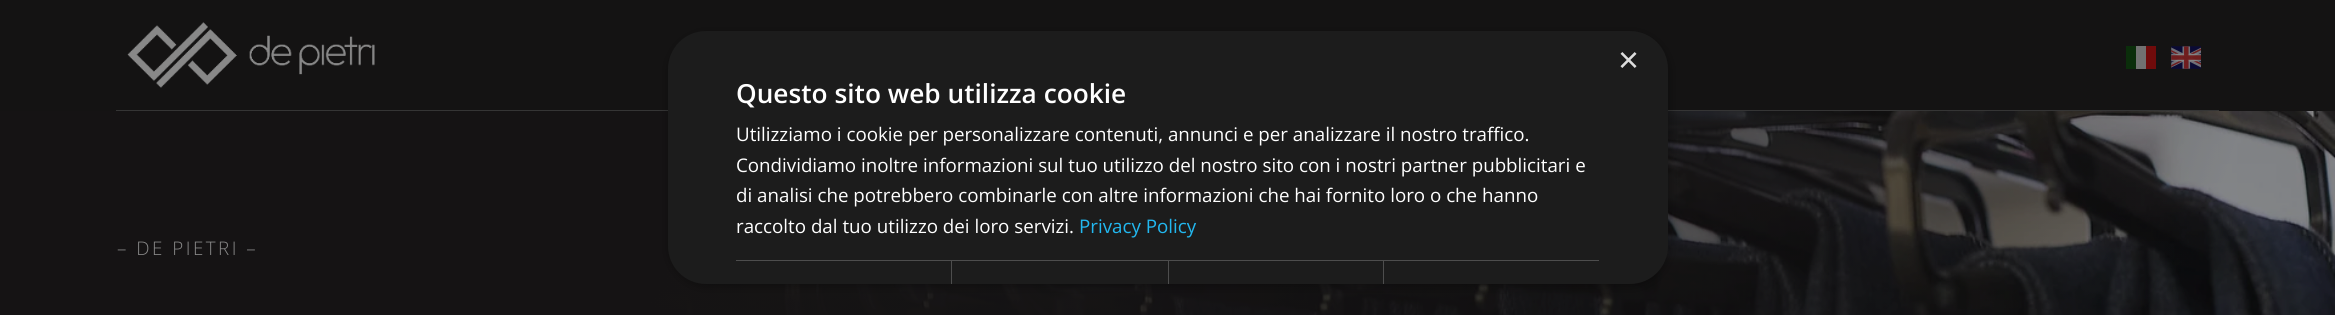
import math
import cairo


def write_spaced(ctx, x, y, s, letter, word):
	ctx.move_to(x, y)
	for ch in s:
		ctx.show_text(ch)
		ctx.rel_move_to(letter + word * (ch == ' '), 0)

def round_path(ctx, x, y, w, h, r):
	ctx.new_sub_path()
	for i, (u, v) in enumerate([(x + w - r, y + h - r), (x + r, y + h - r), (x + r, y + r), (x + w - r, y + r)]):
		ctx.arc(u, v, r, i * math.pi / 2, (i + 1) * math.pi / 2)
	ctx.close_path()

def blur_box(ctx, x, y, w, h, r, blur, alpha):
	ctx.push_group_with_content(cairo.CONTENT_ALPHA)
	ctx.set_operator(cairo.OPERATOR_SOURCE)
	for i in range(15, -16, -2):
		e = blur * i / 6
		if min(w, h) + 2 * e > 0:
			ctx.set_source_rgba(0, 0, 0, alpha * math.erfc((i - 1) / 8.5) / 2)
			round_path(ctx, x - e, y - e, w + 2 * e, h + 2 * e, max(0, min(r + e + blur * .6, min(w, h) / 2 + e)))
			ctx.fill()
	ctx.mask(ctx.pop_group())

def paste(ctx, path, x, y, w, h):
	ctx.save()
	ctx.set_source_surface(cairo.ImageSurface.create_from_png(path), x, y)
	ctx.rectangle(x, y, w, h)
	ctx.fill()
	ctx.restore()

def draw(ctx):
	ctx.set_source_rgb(1, 1, 1)
	ctx.paint()
	ctx.set_source_rgb(0.082, 0.075, 0.078)
	ctx.rectangle(0, 0, 2335, 111)
	ctx.fill()
	ctx.set_source_rgb(0.208, 0.208, 0.208)
	ctx.rectangle(116, 110, 2103, 1)
	ctx.fill()
	paste(ctx, 'media/3.png', 0, 111, 2335, 204)
	ctx.set_source_rgb(0, 0, 0)
	blur_box(ctx, 669, 34, 1000, 252, 38, 5, 0.35)
	ctx.set_source_rgb(0.11, 0.11, 0.11)
	round_path(ctx, 668, 31, 1000, 253, 38)
	ctx.fill()
	ctx.select_font_face('Liberation Sans')
	ctx.set_font_size(36)
	ctx.set_source_rgb(0.867, 0.867, 0.867)
	ctx.move_to(1618, 72)
	ctx.show_text('×')
	ctx.select_font_face('Open Sans SemiBold')
	ctx.set_font_size(26.25)
	ctx.set_source_rgb(1, 1, 1)
	ctx.move_to(736, 103)
	ctx.show_text('Questo sito web utilizza cookie')
	ctx.select_font_face('Open Sans')
	ctx.set_font_size(18.75)
	for x, y, s in [
		(736, 141, 'Utilizziamo i cookie per personalizzare contenuti, annunci e per analizzare il nostro traffico.'),
		(736, 172, 'Condividiamo inoltre informazioni sul tuo utilizzo del nostro sito con i nostri partner pubblicitari e'),
		(736, 202, 'di analisi che potrebbero combinarle con altre informazioni che hai fornito loro o che hanno'),
		(736, 233, 'raccolto dal tuo utilizzo dei loro servizi.'),
	]:
		ctx.move_to(x, y)
		ctx.show_text(s)
	ctx.set_source_rgb(0.133, 0.722, 0.941)
	ctx.move_to(1079, 233)
	ctx.show_text('Privacy Policy')
	ctx.set_source_rgb(0.302, 0.302, 0.302)
	ctx.rectangle(736, 260, 863, 1)
	ctx.rectangle(951, 260, 1, 24)
	ctx.rectangle(1168, 260, 1, 24)
	ctx.rectangle(1383, 260, 1, 24)
	ctx.fill()
	paste(ctx, 'media/1.png', 127, 22, 248, 66)
	ctx.set_source_rgb(0.043, 0.18, 0.043)
	ctx.rectangle(2126, 46, 10, 23)
	ctx.fill()
	ctx.set_source_rgb(0.443, 0.443, 0.443)
	ctx.rectangle(2136, 46, 10, 23)
	ctx.fill()
	ctx.set_source_rgb(0.439, 0.043, 0.043)
	ctx.rectangle(2146, 46, 10, 23)
	ctx.fill()
	paste(ctx, 'media/2.png', 2171, 46, 30, 23)
	ctx.select_font_face('Open Sans Light')
	ctx.set_source_rgb(0.533, 0.533, 0.533)
	write_spaced(ctx, 117, 255, '– DE PIETRI –', 2.5, 0)


surface = cairo.ImageSurface(cairo.FORMAT_RGB24, 2335, 315)
ctx = cairo.Context(surface)
options = cairo.FontOptions()
options.set_hint_metrics(cairo.HINT_METRICS_OFF)
options.set_hint_style(cairo.HINT_STYLE_NONE)
ctx.set_font_options(options)
ctx.set_miter_limit(4)
draw(ctx)
surface.write_to_png('image.png')
